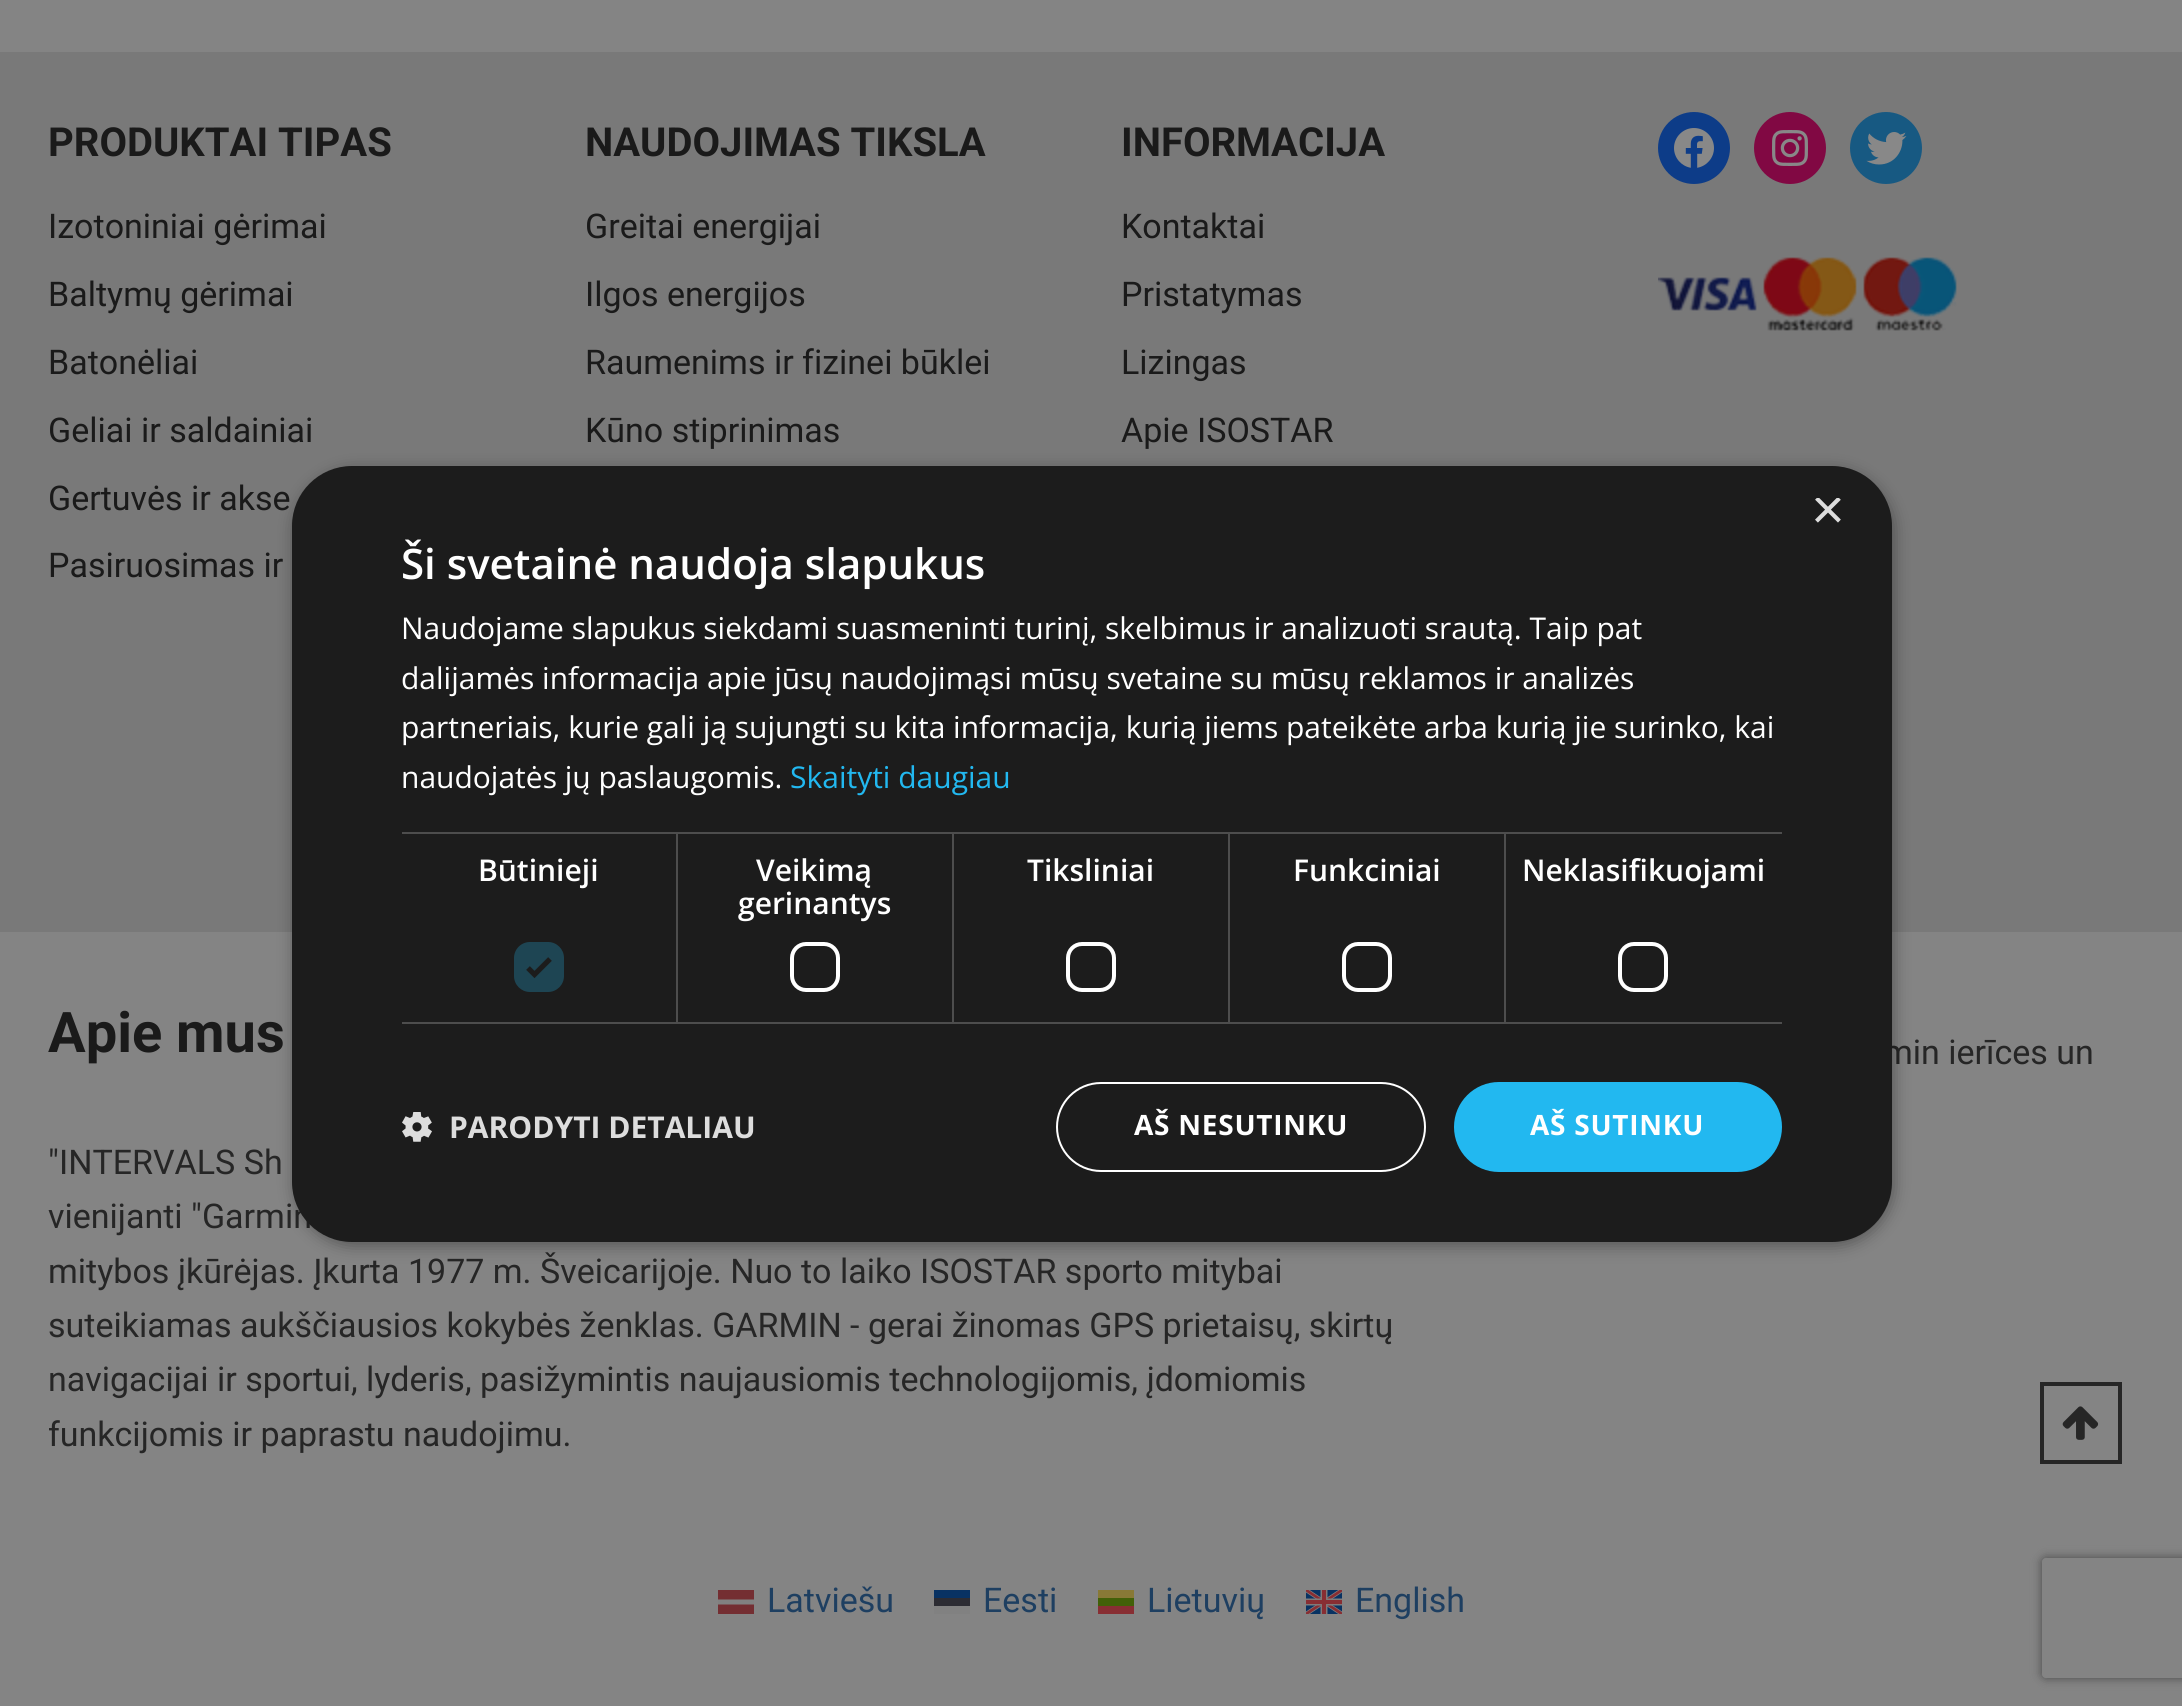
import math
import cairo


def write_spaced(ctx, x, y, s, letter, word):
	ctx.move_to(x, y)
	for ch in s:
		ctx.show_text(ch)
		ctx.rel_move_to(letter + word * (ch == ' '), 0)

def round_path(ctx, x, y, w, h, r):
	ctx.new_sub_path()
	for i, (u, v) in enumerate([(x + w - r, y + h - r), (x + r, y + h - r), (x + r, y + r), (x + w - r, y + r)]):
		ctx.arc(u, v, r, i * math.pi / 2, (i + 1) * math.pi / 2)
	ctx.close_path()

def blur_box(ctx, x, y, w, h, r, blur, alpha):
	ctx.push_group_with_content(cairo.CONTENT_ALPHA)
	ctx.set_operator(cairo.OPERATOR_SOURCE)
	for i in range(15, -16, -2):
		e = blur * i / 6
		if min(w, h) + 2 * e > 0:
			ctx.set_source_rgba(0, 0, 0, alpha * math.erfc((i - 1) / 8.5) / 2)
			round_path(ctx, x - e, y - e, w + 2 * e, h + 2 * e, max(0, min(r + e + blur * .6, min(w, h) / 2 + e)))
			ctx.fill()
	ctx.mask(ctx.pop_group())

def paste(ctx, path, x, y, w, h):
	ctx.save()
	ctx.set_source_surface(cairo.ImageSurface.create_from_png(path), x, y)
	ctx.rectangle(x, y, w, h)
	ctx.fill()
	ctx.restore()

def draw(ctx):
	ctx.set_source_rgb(0.518, 0.518, 0.518)
	ctx.paint()
	ctx.set_source_rgb(0.475, 0.475, 0.475)
	ctx.rectangle(0, 52, 2182, 880)
	ctx.fill()
	ctx.select_font_face('Roboto', cairo.FONT_SLANT_NORMAL, cairo.FONT_WEIGHT_BOLD)
	ctx.set_font_size(40)
	ctx.set_source_rgb(0.102, 0.102, 0.102)
	ctx.move_to(48, 156)
	ctx.show_text('PRODUKTAI TIPAS')
	ctx.select_font_face('Roboto')
	ctx.set_font_size(34)
	for x, y, s in [
		(48, 238, 'Izotoniniai gėrimai'),
		(48, 306, 'Baltymų gėrimai'),
		(48, 374, 'Batonėliai'),
		(48, 442, 'Geliai ir saldainiai'),
		(48, 510, 'Gertuvės ir akse'),
		(48, 577, 'Pasiruosimas ir'),
	]:
		ctx.move_to(x, y)
		ctx.show_text(s)
	ctx.select_font_face('Roboto', cairo.FONT_SLANT_NORMAL, cairo.FONT_WEIGHT_BOLD)
	ctx.set_font_size(40)
	ctx.move_to(585, 156)
	ctx.show_text('NAUDOJIMAS TIKSLA')
	ctx.select_font_face('Roboto')
	ctx.set_font_size(34)
	for x, y, s in [
		(585, 238, 'Greitai energijai'),
		(585, 306, 'Ilgos energijos'),
		(585, 374, 'Raumenims ir fizinei būklei'),
		(585, 442, 'Kūno stiprinimas'),
	]:
		ctx.move_to(x, y)
		ctx.show_text(s)
	ctx.select_font_face('Roboto', cairo.FONT_SLANT_NORMAL, cairo.FONT_WEIGHT_BOLD)
	ctx.set_font_size(40)
	ctx.move_to(1121, 156)
	ctx.show_text('INFORMACIJA')
	ctx.select_font_face('Roboto')
	ctx.set_font_size(34)
	for x, y, s in [
		(1121, 238, 'Kontaktai'),
		(1121, 306, 'Pristatymas'),
		(1121, 374, 'Lizingas'),
		(1121, 442, 'Apie ISOSTAR'),
	]:
		ctx.move_to(x, y)
		ctx.show_text(s)
	ctx.set_source_rgb(0.051, 0.235, 0.533)
	ctx.new_path()
	ctx.arc(1694, 148, 36, 0, 2 * math.pi)
	ctx.fill()
	paste(ctx, 'media/1.png', 1674, 128, 40, 40)
	ctx.set_source_rgb(0.506, 0.035, 0.263)
	ctx.arc(1790, 148, 36, 0, 2 * math.pi)
	ctx.fill()
	paste(ctx, 'media/2.png', 1772, 130, 36, 36)
	ctx.set_source_rgb(0.09, 0.349, 0.51)
	ctx.arc(1886, 148, 36, 0, 2 * math.pi)
	ctx.fill()
	paste(ctx, 'media/3.png', 1866, 132, 41, 33)
	paste(ctx, 'media/4.png', 1658, 257, 299, 74)
	ctx.select_font_face('Roboto', cairo.FONT_SLANT_NORMAL, cairo.FONT_WEIGHT_BOLD)
	ctx.set_font_size(56)
	ctx.set_source_rgb(0.102, 0.102, 0.102)
	ctx.move_to(48, 1052)
	ctx.show_text('Apie mus')
	ctx.select_font_face('Roboto')
	ctx.set_font_size(34)
	ctx.set_source_rgb(0.149, 0.149, 0.149)
	for x, y, s in [
		(48, 1174, '"INTERVALS Sh'),
		(48, 1228, 'vienijanti "Garmin'),
		(48, 1283, 'mitybos įkūrėjas. Įkurta 1977 m. Šveicarijoje. Nuo to laiko ISOSTAR sporto mitybai'),
		(48, 1337, 'suteikiamas aukščiausios kokybės ženklas. GARMIN - gerai žinomas GPS prietaisų, skirtų'),
		(48, 1391, 'navigacijai ir sportui, lyderis, pasižymintis naujausiomis technologijomis, įdomiomis'),
		(48, 1446, 'funkcijomis ir paprastu naudojimu.'),
		(1883, 1064, 'min ierīces un'),
	]:
		ctx.move_to(x, y)
		ctx.show_text(s)
	ctx.set_source_rgb(0, 0, 0)
	blur_box(ctx, 294, 470, 1600, 776, 60, 8, 0.35)
	ctx.set_source_rgb(0.11, 0.11, 0.11)
	round_path(ctx, 292, 466, 1600, 776, 60)
	ctx.fill()
	ctx.save()
	ctx.rectangle(1812, 498, 30, 30)
	ctx.clip()
	ctx.select_font_face('Liberation Sans')
	ctx.set_font_size(58)
	ctx.set_source_rgb(0.867, 0.867, 0.867)
	ctx.move_to(1811, 529)
	ctx.show_text('×')
	ctx.restore()
	ctx.select_font_face('Open Sans SemiBold')
	ctx.set_font_size(42)
	ctx.set_source_rgb(1, 1, 1)
	ctx.move_to(401, 579)
	ctx.show_text('Ši svetainė naudoja slapukus')
	ctx.select_font_face('Open Sans')
	ctx.set_font_size(30)
	for x, y, s in [
		(401, 639, 'Naudojame slapukus siekdami suasmeninti turinį, skelbimus ir analizuoti srautą. Taip pat'),
		(401, 689, 'dalijamės informacija apie jūsų naudojimąsi mūsų svetaine su mūsų reklamos ir analizės'),
		(401, 738, 'partneriais, kurie gali ją sujungti su kita informacija, kurią jiems pateikėte arba kurią jie surinko, kai'),
		(401, 788, 'naudojatės jų paslaugomis.'),
	]:
		ctx.move_to(x, y)
		ctx.show_text(s)
	ctx.set_source_rgb(0.133, 0.722, 0.941)
	ctx.move_to(790, 788)
	ctx.show_text('Skaityti daugiau')
	ctx.set_source_rgb(0.302, 0.302, 0.302)
	ctx.rectangle(402, 832, 1380, 2)
	ctx.rectangle(676, 832, 2, 192)
	ctx.rectangle(402, 1022, 276, 2)
	ctx.fill()
	ctx.select_font_face('Open Sans SemiBold')
	ctx.set_source_rgb(1, 1, 1)
	ctx.move_to(478, 881)
	ctx.show_text('Būtinieji')
	ctx.set_source_rgb(0.118, 0.271, 0.325)
	round_path(ctx, 514, 942, 50, 50, 16)
	ctx.fill()
	ctx.new_path()
	ctx.move_to(528, 968)
	ctx.line_to(534.5, 974.5)
	ctx.line_to(550, 959)
	ctx.set_source_rgb(0.11, 0.11, 0.11)
	ctx.set_line_width(5.2)
	ctx.stroke()
	ctx.set_source_rgb(0.302, 0.302, 0.302)
	ctx.rectangle(952, 832, 2, 192)
	ctx.fill()
	ctx.rectangle(678, 1022, 276, 2)
	ctx.fill()
	ctx.set_source_rgb(1, 1, 1)
	ctx.move_to(756, 881)
	ctx.show_text('Veikimą')
	ctx.move_to(738, 914)
	ctx.show_text('gerinantys')
	round_path(ctx, 792, 944, 46, 46, 14)
	ctx.set_line_width(4)
	ctx.stroke()
	round_path(ctx, 769, 921, 92, 92, 3)
	ctx.set_source_rgb(0.11, 0.11, 0.11)
	ctx.set_line_width(2)
	ctx.stroke()
	ctx.set_source_rgb(0.302, 0.302, 0.302)
	ctx.rectangle(1228, 832, 2, 192)
	ctx.fill()
	ctx.rectangle(954, 1022, 276, 2)
	ctx.fill()
	ctx.set_source_rgb(1, 1, 1)
	ctx.move_to(1027, 881)
	ctx.show_text('Tiksliniai')
	round_path(ctx, 1068, 944, 46, 46, 14)
	ctx.set_line_width(4)
	ctx.stroke()
	ctx.set_source_rgb(0.302, 0.302, 0.302)
	ctx.rectangle(1504, 832, 2, 192)
	ctx.fill()
	ctx.rectangle(1230, 1022, 552, 2)
	ctx.fill()
	ctx.set_source_rgb(1, 1, 1)
	ctx.move_to(1293, 881)
	ctx.show_text('Funkciniai')
	round_path(ctx, 1344, 944, 46, 46, 14)
	ctx.stroke()
	ctx.move_to(1522, 881)
	ctx.show_text('Neklasifikuojami')
	round_path(ctx, 1620, 944, 46, 46, 14)
	ctx.stroke()
	paste(ctx, 'media/5.png', 402, 1112, 30, 30)
	ctx.select_font_face('Open Sans', cairo.FONT_SLANT_NORMAL, cairo.FONT_WEIGHT_BOLD)
	ctx.set_source_rgb(0.867, 0.867, 0.867)
	ctx.move_to(449, 1138)
	ctx.show_text('PARODYTI DETALIAU')
	round_path(ctx, 1057, 1083, 368, 88, 44)
	ctx.set_source_rgb(1, 1, 1)
	ctx.set_line_width(2)
	ctx.stroke()
	ctx.set_font_size(28)
	write_spaced(ctx, 1134, 1135, 'AŠ NESUTINKU', 0.75, 0)
	ctx.set_source_rgb(0.133, 0.722, 0.941)
	round_path(ctx, 1454, 1082, 328, 90, 45)
	ctx.fill()
	ctx.set_source_rgb(1, 1, 1)
	write_spaced(ctx, 1530, 1135, 'AŠ SUTINKU', 0.75, 0)
	ctx.rectangle(2042, 1384, 78, 78)
	ctx.set_source_rgb(0.149, 0.149, 0.149)
	ctx.set_line_width(4)
	ctx.stroke()
	paste(ctx, 'media/6.png', 2062, 1406, 37, 34)
	ctx.set_source_rgb(0.455, 0.18, 0.196)
	ctx.new_path()
	ctx.move_to(718, 1590)
	ctx.line_to(754, 1590)
	ctx.line_to(754, 1614)
	ctx.line_to(718, 1614)
	ctx.fill()
	ctx.select_font_face('Roboto')
	ctx.set_font_size(34)
	ctx.set_source_rgb(0.118, 0.247, 0.38)
	ctx.move_to(767, 1612)
	ctx.show_text('Latviešu')
	ctx.set_source_rgb(0.506, 0.506, 0.506)
	ctx.new_path()
	ctx.move_to(718, 1599.5)
	ctx.line_to(754, 1599.5)
	ctx.line_to(754, 1604.5)
	ctx.line_to(718, 1604.5)
	ctx.fill()
	ctx.set_source_rgb(0.035, 0.196, 0.388)
	ctx.rectangle(934, 1590, 36, 8)
	ctx.fill()
	ctx.set_source_rgb(0.118, 0.247, 0.38)
	ctx.move_to(983, 1612)
	ctx.show_text('Eesti')
	ctx.set_source_rgb(0.173, 0.173, 0.2)
	ctx.rectangle(934, 1598, 36, 8)
	ctx.fill()
	ctx.set_source_rgb(0.506, 0.506, 0.506)
	ctx.rectangle(934, 1606, 36, 8)
	ctx.fill()
	ctx.set_source_rgb(0.533, 0.475, 0.212)
	ctx.rectangle(1098, 1590, 36, 8)
	ctx.fill()
	ctx.set_source_rgb(0.118, 0.247, 0.38)
	ctx.move_to(1147, 1612)
	ctx.show_text('Lietuvių')
	ctx.set_source_rgb(0.259, 0.376, 0.035)
	ctx.rectangle(1098, 1598, 36, 8)
	ctx.fill()
	ctx.set_source_rgb(0.533, 0.18, 0.2)
	ctx.rectangle(1098, 1606, 36, 8)
	ctx.fill()
	paste(ctx, 'media/7.png', 1306, 1590, 36, 24)
	ctx.set_source_rgb(0.118, 0.247, 0.38)
	ctx.move_to(1355, 1612)
	ctx.show_text('English')
	ctx.save()
	ctx.set_fill_rule(cairo.FILL_RULE_EVEN_ODD)
	ctx.new_path()
	ctx.move_to(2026, 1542)
	ctx.line_to(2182, 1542)
	ctx.line_to(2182, 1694)
	ctx.line_to(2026, 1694)
	ctx.close_path()
	ctx.move_to(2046, 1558)
	ctx.line_to(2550, 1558)
	ctx.curve_to(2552, 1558, 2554, 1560, 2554, 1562)
	ctx.line_to(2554, 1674)
	ctx.curve_to(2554, 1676, 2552, 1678, 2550, 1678)
	ctx.line_to(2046, 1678)
	ctx.curve_to(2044, 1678, 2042, 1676, 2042, 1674)
	ctx.line_to(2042, 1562)
	ctx.curve_to(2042, 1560, 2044, 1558, 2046, 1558)
	ctx.close_path()
	ctx.clip()
	ctx.set_source_rgb(0.286, 0.286, 0.286)
	blur_box(ctx, 2042, 1558, 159, 120, 4, 5, 1)
	ctx.restore()


surface = cairo.ImageSurface(cairo.FORMAT_RGB24, 2182, 1706)
ctx = cairo.Context(surface)
options = cairo.FontOptions()
options.set_hint_metrics(cairo.HINT_METRICS_OFF)
options.set_hint_style(cairo.HINT_STYLE_NONE)
ctx.set_font_options(options)
ctx.set_miter_limit(4)
draw(ctx)
surface.write_to_png('image.png')
